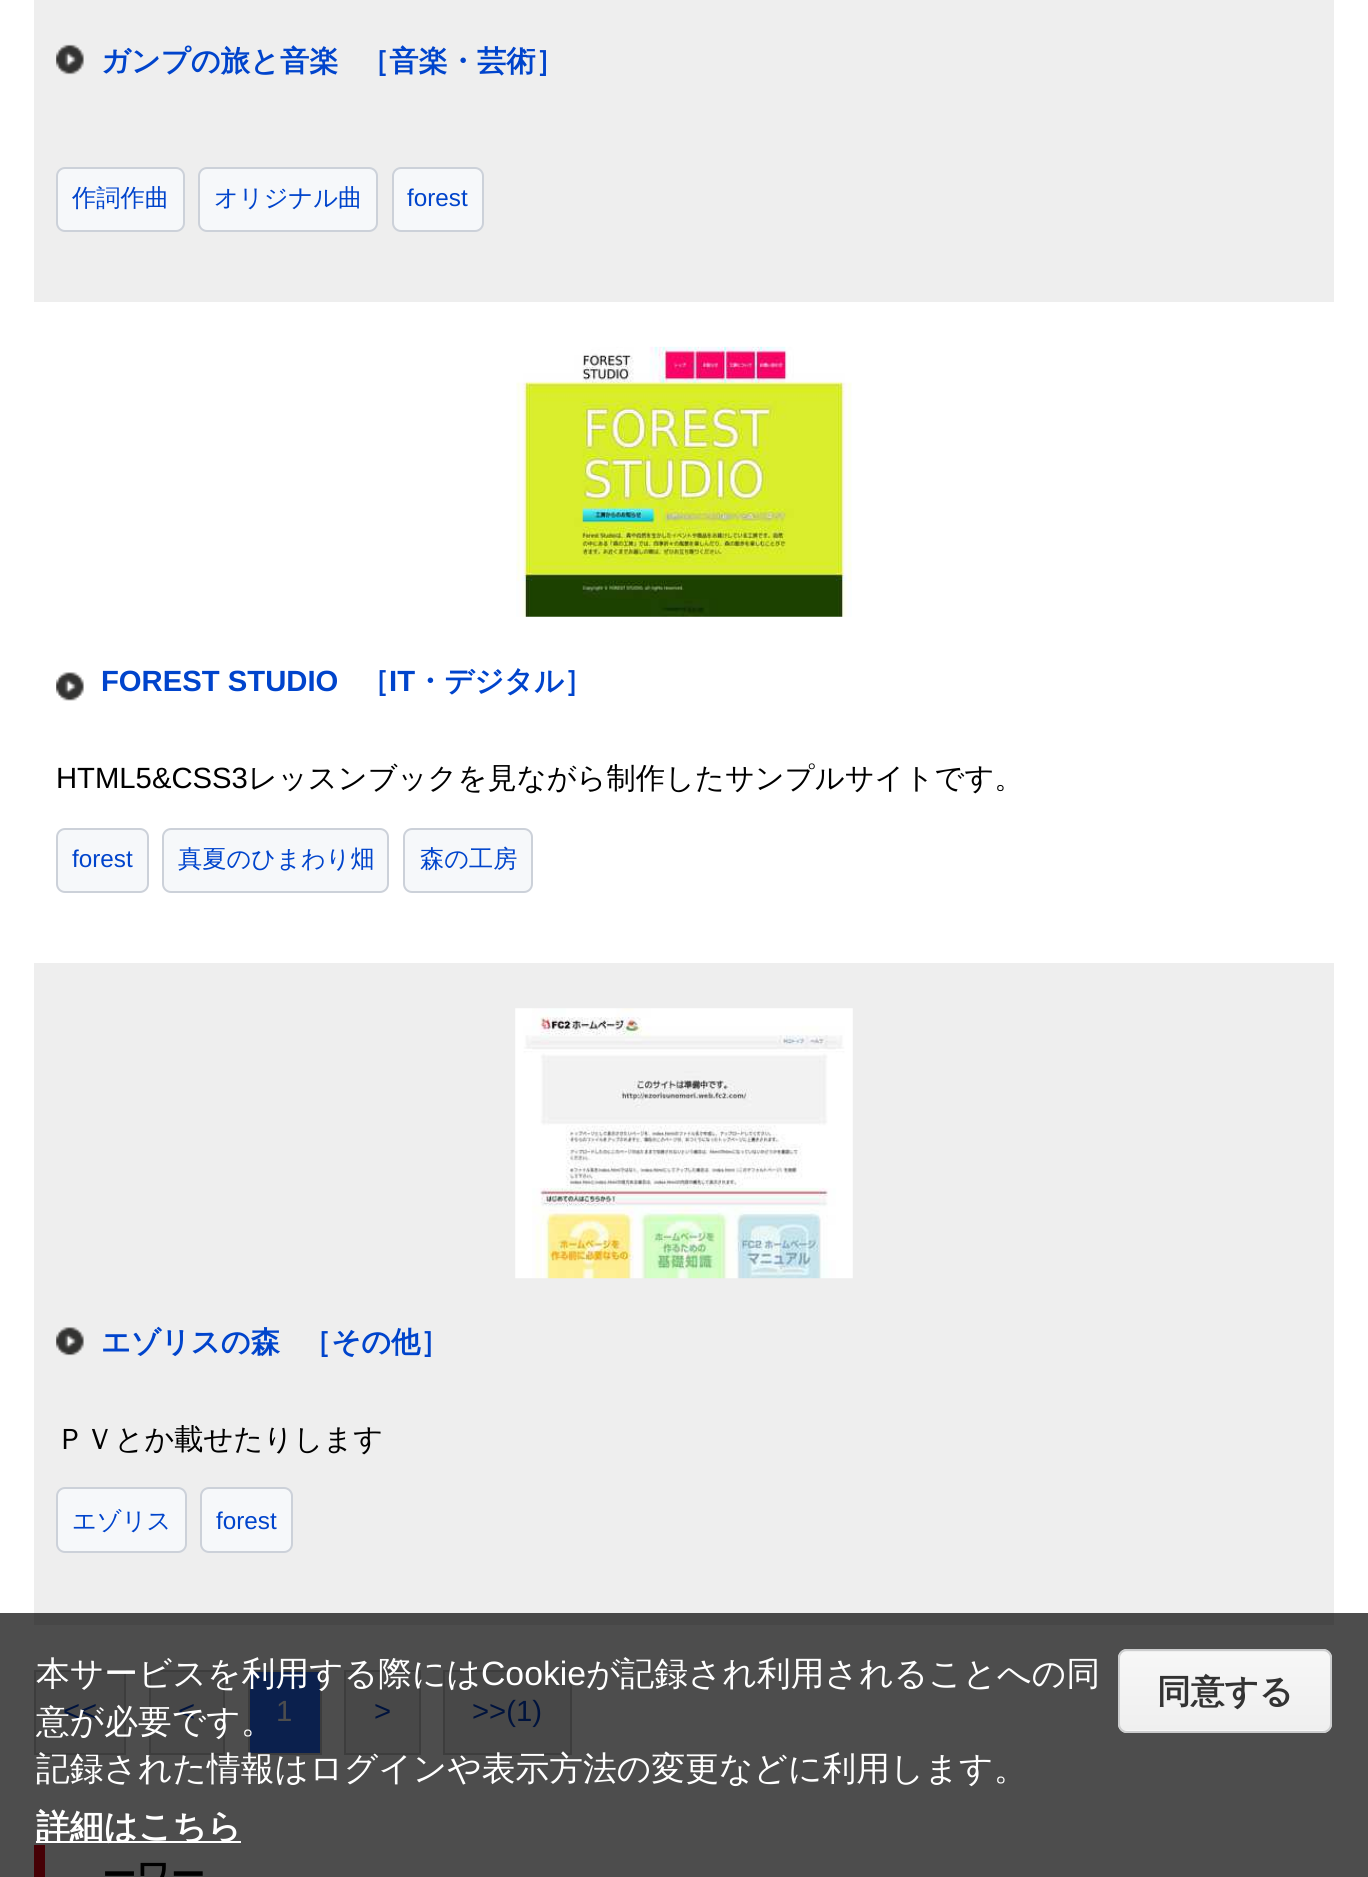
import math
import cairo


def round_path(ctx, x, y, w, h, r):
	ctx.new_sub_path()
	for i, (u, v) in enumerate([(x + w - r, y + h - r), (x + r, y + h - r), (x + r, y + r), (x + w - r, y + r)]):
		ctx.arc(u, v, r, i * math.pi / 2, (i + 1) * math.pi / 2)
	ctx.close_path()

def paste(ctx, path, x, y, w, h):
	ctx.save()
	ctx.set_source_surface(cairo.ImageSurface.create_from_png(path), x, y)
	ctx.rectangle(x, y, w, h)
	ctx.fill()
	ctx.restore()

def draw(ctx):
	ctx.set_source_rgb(1, 1, 1)
	ctx.paint()
	ctx.set_source_rgb(0.302, 0.302, 0.302)
	ctx.rectangle(0, 1613, 1368, 264)
	ctx.fill()
	ctx.set_source_rgb(0.933, 0.933, 0.933)
	ctx.rectangle(34, 0, 1300, 302)
	ctx.fill()
	paste(ctx, 'media/1.png', 56, 44, 28, 31)
	ctx.select_font_face('WenQuanYi Zen Hei', cairo.FONT_SLANT_NORMAL, cairo.FONT_WEIGHT_BOLD)
	ctx.set_font_size(29.25)
	ctx.set_source_rgb(0, 0.267, 0.8)
	ctx.move_to(101, 71)
	ctx.show_text('ガンプの旅と音楽')
	ctx.move_to(360, 71)
	ctx.show_text('［音楽・芸術］')
	ctx.set_source_rgb(0.961, 0.969, 0.98)
	round_path(ctx, 57, 168, 127, 63, 8)
	ctx.fill_preserve()
	ctx.set_source_rgb(0.8, 0.82, 0.851)
	ctx.stroke()
	ctx.select_font_face('WenQuanYi Zen Hei Medium')
	ctx.set_font_size(24.25)
	ctx.set_source_rgb(0, 0.267, 0.8)
	ctx.move_to(72, 206)
	ctx.show_text('作詞作曲')
	ctx.set_source_rgb(0.961, 0.969, 0.98)
	round_path(ctx, 199, 168, 178, 63, 8)
	ctx.fill_preserve()
	ctx.set_source_rgb(0.8, 0.82, 0.851)
	ctx.stroke()
	ctx.set_source_rgb(0, 0.267, 0.8)
	ctx.move_to(214, 206)
	ctx.show_text('オリジナル曲')
	ctx.set_source_rgb(0.961, 0.969, 0.98)
	round_path(ctx, 393, 168, 90, 63, 8)
	ctx.fill_preserve()
	ctx.set_source_rgb(0.8, 0.82, 0.851)
	ctx.stroke()
	ctx.select_font_face('Liberation Sans')
	ctx.set_source_rgb(0, 0.267, 0.8)
	ctx.move_to(407, 206)
	ctx.show_text('forest')
	paste(ctx, 'media/2.png', 516, 346, 336, 271)
	paste(ctx, 'media/3.png', 56, 672, 28, 29)
	ctx.select_font_face('Liberation Sans', cairo.FONT_SLANT_NORMAL, cairo.FONT_WEIGHT_BOLD)
	ctx.set_font_size(29.25)
	ctx.move_to(101, 691)
	ctx.show_text('FOREST STUDIO')
	ctx.select_font_face('WenQuanYi Zen Hei', cairo.FONT_SLANT_NORMAL, cairo.FONT_WEIGHT_BOLD)
	ctx.move_to(360, 691)
	ctx.show_text('［')
	ctx.select_font_face('Liberation Sans', cairo.FONT_SLANT_NORMAL, cairo.FONT_WEIGHT_BOLD)
	ctx.move_to(389, 691)
	ctx.show_text('IT')
	ctx.select_font_face('WenQuanYi Zen Hei', cairo.FONT_SLANT_NORMAL, cairo.FONT_WEIGHT_BOLD)
	ctx.move_to(415, 691)
	ctx.show_text('・デジタル］')
	ctx.select_font_face('Liberation Sans')
	ctx.set_source_rgb(0, 0, 0)
	ctx.move_to(56, 788)
	ctx.show_text('HTML5&CSS3')
	ctx.select_font_face('WenQuanYi Zen Hei Medium')
	ctx.move_to(248, 788)
	ctx.show_text('レッスンブックを見ながら制作したサンプルサイトです。')
	ctx.set_source_rgb(0.961, 0.969, 0.98)
	round_path(ctx, 57, 829, 91, 63, 8)
	ctx.fill_preserve()
	ctx.set_source_rgb(0.8, 0.82, 0.851)
	ctx.stroke()
	ctx.select_font_face('Liberation Sans')
	ctx.set_font_size(24.25)
	ctx.set_source_rgb(0, 0.267, 0.8)
	ctx.move_to(72, 867)
	ctx.show_text('forest')
	ctx.set_source_rgb(0.961, 0.969, 0.98)
	round_path(ctx, 163, 829, 225, 63, 8)
	ctx.fill_preserve()
	ctx.set_source_rgb(0.8, 0.82, 0.851)
	ctx.stroke()
	ctx.select_font_face('WenQuanYi Zen Hei Medium')
	ctx.set_source_rgb(0, 0.267, 0.8)
	ctx.move_to(178, 867)
	ctx.show_text('真夏のひまわり畑')
	ctx.set_source_rgb(0.961, 0.969, 0.98)
	round_path(ctx, 404, 829, 128, 63, 8)
	ctx.fill_preserve()
	ctx.set_source_rgb(0.8, 0.82, 0.851)
	ctx.stroke()
	ctx.set_source_rgb(0, 0.267, 0.8)
	ctx.move_to(420, 867)
	ctx.show_text('森の工房')
	ctx.set_source_rgb(0.933, 0.933, 0.933)
	ctx.rectangle(34, 963, 1300, 650)
	ctx.fill()
	ctx.set_source_rgb(0.278, 0.278, 0.278)
	ctx.rectangle(34, 1613, 1300, 12)
	ctx.fill()
	paste(ctx, 'media/4.png', 515, 1008, 338, 271)
	paste(ctx, 'media/5.png', 56, 1327, 28, 29)
	ctx.select_font_face('WenQuanYi Zen Hei', cairo.FONT_SLANT_NORMAL, cairo.FONT_WEIGHT_BOLD)
	ctx.set_font_size(29.25)
	ctx.set_source_rgb(0, 0.267, 0.8)
	ctx.move_to(101, 1352)
	ctx.show_text('エゾリスの森')
	ctx.move_to(302, 1352)
	ctx.show_text('［その他］')
	ctx.select_font_face('WenQuanYi Zen Hei Medium')
	ctx.set_source_rgb(0, 0, 0)
	ctx.move_to(56, 1449)
	ctx.show_text('ＰＶとか載せたりします')
	ctx.set_source_rgb(0.961, 0.969, 0.98)
	round_path(ctx, 57, 1488, 129, 64, 8)
	ctx.fill_preserve()
	ctx.set_source_rgb(0.8, 0.82, 0.851)
	ctx.stroke()
	ctx.set_font_size(24.25)
	ctx.set_source_rgb(0, 0.267, 0.8)
	ctx.move_to(72, 1529)
	ctx.show_text('エゾリス')
	ctx.set_source_rgb(0.961, 0.969, 0.98)
	round_path(ctx, 201, 1488, 91, 64, 8)
	ctx.fill_preserve()
	ctx.set_source_rgb(0.8, 0.82, 0.851)
	ctx.stroke()
	ctx.select_font_face('Liberation Sans')
	ctx.set_source_rgb(0, 0.267, 0.8)
	ctx.move_to(216, 1529)
	ctx.show_text('forest')
	ctx.set_source_rgb(0.282, 0.282, 0.282)
	ctx.rectangle(35, 1671, 90, 83)
	ctx.fill_preserve()
	ctx.set_source_rgb(0.239, 0.239, 0.239)
	ctx.stroke()
	ctx.set_font_size(29.25)
	ctx.set_source_rgb(0, 0.078, 0.239)
	ctx.move_to(63, 1721)
	ctx.show_text('<<')
	ctx.set_source_rgb(0.282, 0.282, 0.282)
	ctx.rectangle(150, 1671, 74, 83)
	ctx.fill_preserve()
	ctx.set_source_rgb(0.239, 0.239, 0.239)
	ctx.stroke()
	ctx.set_source_rgb(0, 0.078, 0.239)
	ctx.move_to(178, 1721)
	ctx.show_text('<')
	ctx.set_source_rgb(0.043, 0.125, 0.302)
	ctx.rectangle(249, 1671, 72, 83)
	ctx.fill_preserve()
	ctx.set_source_rgb(0.239, 0.239, 0.239)
	ctx.stroke()
	ctx.set_source_rgb(0.302, 0.302, 0.302)
	ctx.move_to(276, 1721)
	ctx.show_text('1')
	ctx.set_source_rgb(0.282, 0.282, 0.282)
	ctx.rectangle(345, 1671, 75, 83)
	ctx.fill_preserve()
	ctx.set_source_rgb(0.239, 0.239, 0.239)
	ctx.stroke()
	ctx.set_source_rgb(0, 0.078, 0.239)
	ctx.move_to(374, 1721)
	ctx.show_text('>')
	ctx.set_source_rgb(0.282, 0.282, 0.282)
	ctx.rectangle(444, 1671, 127, 83)
	ctx.fill_preserve()
	ctx.set_source_rgb(0.239, 0.239, 0.239)
	ctx.stroke()
	ctx.set_source_rgb(0, 0.078, 0.239)
	ctx.move_to(472, 1721)
	ctx.show_text('>>(1)')
	ctx.set_source_rgb(0.275, 0, 0.02)
	ctx.rectangle(34, 1845, 11, 32)
	ctx.fill()
	ctx.select_font_face('WenQuanYi Zen Hei', cairo.FONT_SLANT_NORMAL, cairo.FONT_WEIGHT_BOLD)
	ctx.set_font_size(34)
	ctx.set_source_rgb(0, 0, 0)
	ctx.move_to(102, 1887)
	ctx.show_text('ーワー')
	ctx.select_font_face('WenQuanYi Zen Hei Medium')
	ctx.set_font_size(33.75)
	ctx.set_source_rgb(1, 1, 1)
	ctx.move_to(36, 1685)
	ctx.show_text('本サービスを利用する際には')
	ctx.select_font_face('Liberation Sans')
	ctx.move_to(481, 1685)
	ctx.show_text('Cookie')
	ctx.select_font_face('WenQuanYi Zen Hei Medium')
	for x, y, s in [
		(586, 1685, 'が記録され利用されることへの同'),
		(36, 1733, '意が必要です。'),
		(36, 1780, '記録された情報はログインや表示方法の変更などに利用します。'),
	]:
		ctx.move_to(x, y)
		ctx.show_text(s)
	ctx.rectangle(36, 1841, 205, 2)
	ctx.fill()
	ctx.select_font_face('WenQuanYi Zen Hei', cairo.FONT_SLANT_NORMAL, cairo.FONT_WEIGHT_BOLD)
	ctx.move_to(36, 1838)
	ctx.show_text('詳細はこちら')
	ctx.save()
	round_path(ctx, 1118, 1649, 214, 84, 9)
	ctx.clip()
	gradient = cairo.LinearGradient(1225, 1573, 1225, 1652)
	gradient.add_color_stop_rgba(0, 0.969, 0.969, 0.969, 1)
	gradient.add_color_stop_rgba(1, 0.937, 0.937, 0.937, 1)
	ctx.set_source(gradient)
	ctx.rectangle(1118, 1649, 214, 3)
	ctx.fill()
	gradient = cairo.LinearGradient(1225, 1652, 1225, 1730)
	gradient.add_color_stop_rgba(0, 0.969, 0.969, 0.969, 1)
	gradient.add_color_stop_rgba(1, 0.937, 0.937, 0.937, 1)
	ctx.set_source(gradient)
	ctx.rectangle(1118, 1652, 214, 78)
	ctx.fill()
	gradient = cairo.LinearGradient(1225, 1730, 1225, 1809)
	gradient.add_color_stop_rgba(0, 0.969, 0.969, 0.969, 1)
	gradient.add_color_stop_rgba(1, 0.937, 0.937, 0.937, 1)
	ctx.set_source(gradient)
	ctx.rectangle(1118, 1730, 214, 3)
	ctx.fill()
	ctx.restore()
	round_path(ctx, 1119, 1650, 212, 82, 8)
	ctx.set_source_rgb(0.8, 0.804, 0.808)
	ctx.stroke()
	ctx.set_source_rgb(0.2, 0.2, 0.2)
	ctx.move_to(1157, 1703)
	ctx.show_text('同意する')


surface = cairo.ImageSurface(cairo.FORMAT_RGB24, 1368, 1877)
ctx = cairo.Context(surface)
options = cairo.FontOptions()
options.set_hint_metrics(cairo.HINT_METRICS_OFF)
options.set_hint_style(cairo.HINT_STYLE_NONE)
ctx.set_font_options(options)
ctx.set_miter_limit(4)
draw(ctx)
surface.write_to_png('image.png')
